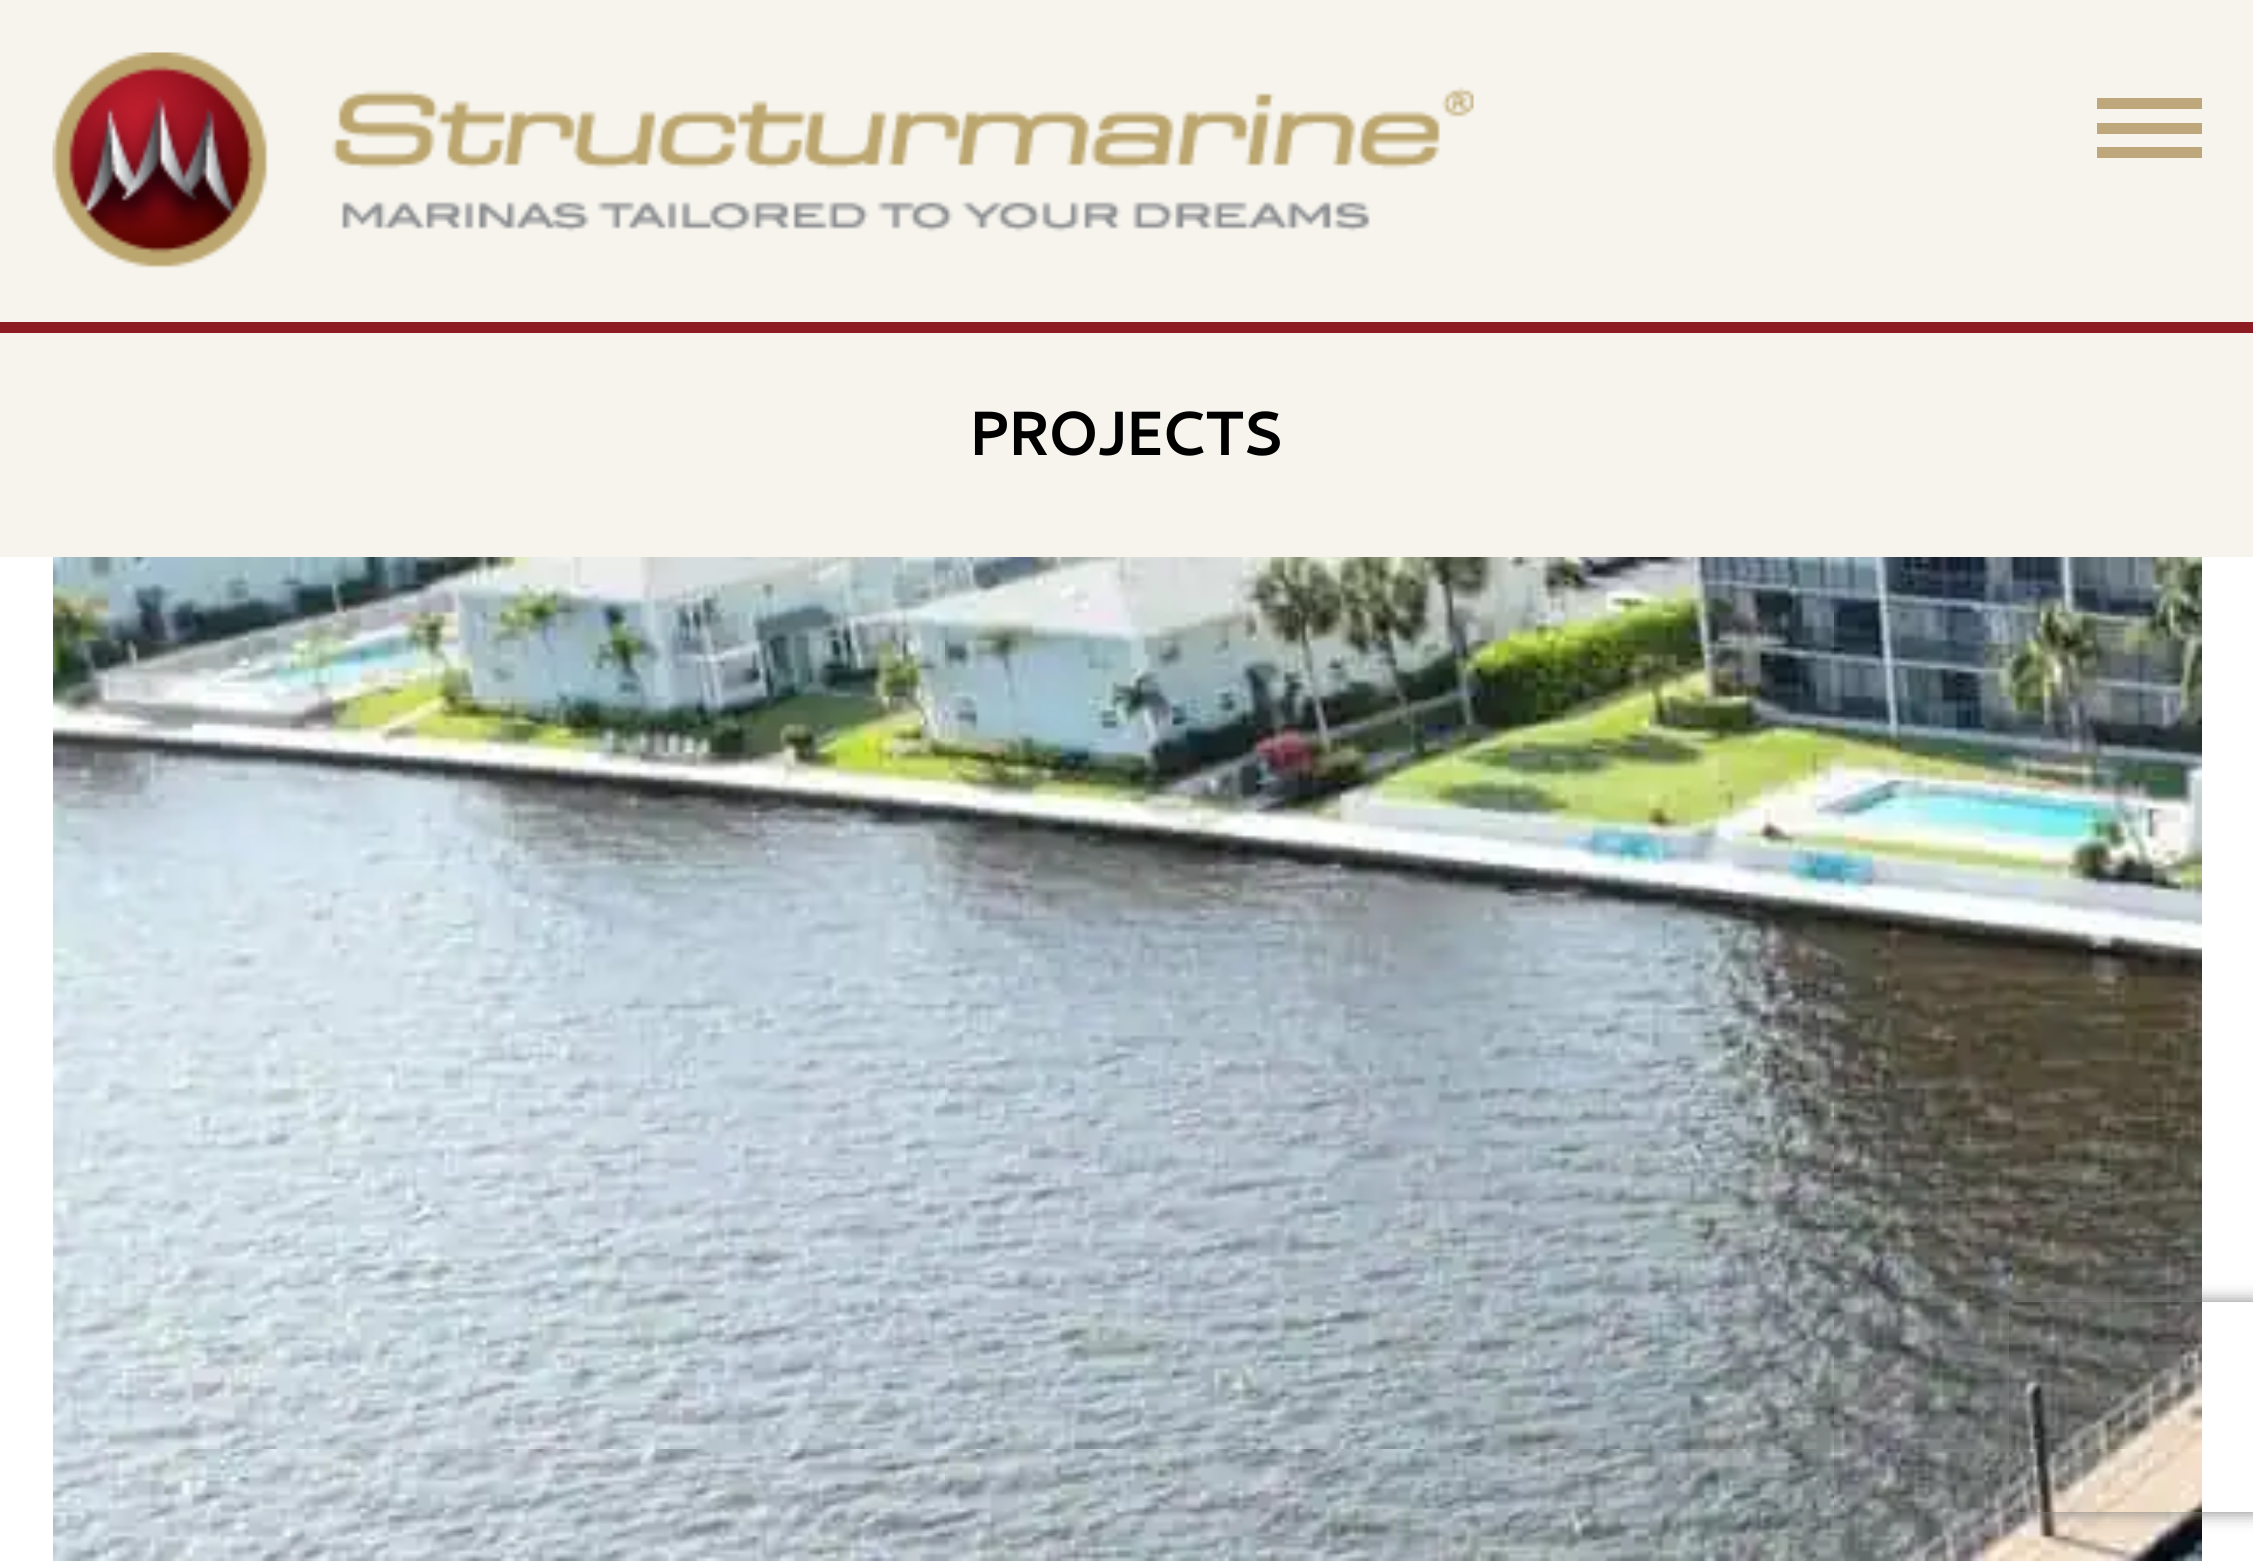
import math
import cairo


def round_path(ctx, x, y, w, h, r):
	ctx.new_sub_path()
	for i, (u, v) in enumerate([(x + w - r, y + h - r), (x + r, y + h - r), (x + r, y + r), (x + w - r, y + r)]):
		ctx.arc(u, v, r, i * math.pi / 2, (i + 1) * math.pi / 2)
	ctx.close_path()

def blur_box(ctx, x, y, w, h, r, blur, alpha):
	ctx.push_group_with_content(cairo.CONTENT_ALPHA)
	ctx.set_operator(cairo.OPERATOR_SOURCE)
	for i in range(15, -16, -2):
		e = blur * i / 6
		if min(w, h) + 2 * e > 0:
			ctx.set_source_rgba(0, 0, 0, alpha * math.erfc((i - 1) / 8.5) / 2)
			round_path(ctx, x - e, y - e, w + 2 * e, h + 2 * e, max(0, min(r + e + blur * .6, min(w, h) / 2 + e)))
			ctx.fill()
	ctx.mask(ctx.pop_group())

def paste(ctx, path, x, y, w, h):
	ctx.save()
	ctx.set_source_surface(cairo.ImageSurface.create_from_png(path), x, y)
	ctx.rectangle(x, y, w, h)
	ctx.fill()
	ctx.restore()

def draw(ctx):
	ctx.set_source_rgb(1, 1, 1)
	ctx.paint()
	ctx.set_source_rgb(0.961, 0.957, 0.929)
	ctx.rectangle(0, 0, 2253, 322)
	ctx.fill()
	ctx.set_source_rgb(0.549, 0.11, 0.129)
	ctx.rectangle(0, 322, 2253, 11)
	ctx.fill()
	paste(ctx, 'media/1.png', 52, 52, 1422, 216)
	ctx.set_source_rgb(0.741, 0.655, 0.482)
	ctx.rectangle(2097, 98, 105, 11)
	ctx.rectangle(2097, 123, 105, 11)
	ctx.rectangle(2097, 147, 105, 11)
	ctx.fill()
	ctx.set_source_rgb(0.961, 0.957, 0.929)
	ctx.rectangle(0, 333, 2253, 224)
	ctx.fill()
	ctx.select_font_face('Cambay', cairo.FONT_SLANT_NORMAL, cairo.FONT_WEIGHT_BOLD)
	ctx.set_font_size(63)
	ctx.set_source_rgb(0, 0, 0)
	ctx.move_to(970, 455)
	ctx.show_text('PROJECTS')
	paste(ctx, 'media/2.png', 53, 557, 2149, 1004)
	ctx.save()
	ctx.set_fill_rule(cairo.FILL_RULE_EVEN_ODD)
	ctx.new_path()
	ctx.move_to(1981, 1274)
	ctx.line_to(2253, 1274)
	ctx.line_to(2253, 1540)
	ctx.line_to(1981, 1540)
	ctx.close_path()
	ctx.move_to(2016, 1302)
	ctx.line_to(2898, 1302)
	ctx.curve_to(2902, 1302, 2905, 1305, 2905, 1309)
	ctx.line_to(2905, 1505)
	ctx.curve_to(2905, 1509, 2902, 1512, 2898, 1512)
	ctx.line_to(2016, 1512)
	ctx.curve_to(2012, 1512, 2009, 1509, 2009, 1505)
	ctx.line_to(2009, 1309)
	ctx.curve_to(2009, 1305, 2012, 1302, 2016, 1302)
	ctx.close_path()
	ctx.clip()
	ctx.set_source_rgb(0.502, 0.502, 0.502)
	blur_box(ctx, 2009, 1302, 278, 210, 7, 9, 1)
	ctx.restore()


surface = cairo.ImageSurface(cairo.FORMAT_RGB24, 2253, 1561)
ctx = cairo.Context(surface)
options = cairo.FontOptions()
options.set_hint_metrics(cairo.HINT_METRICS_OFF)
options.set_hint_style(cairo.HINT_STYLE_NONE)
ctx.set_font_options(options)
ctx.set_miter_limit(4)
draw(ctx)
surface.write_to_png('image.png')
